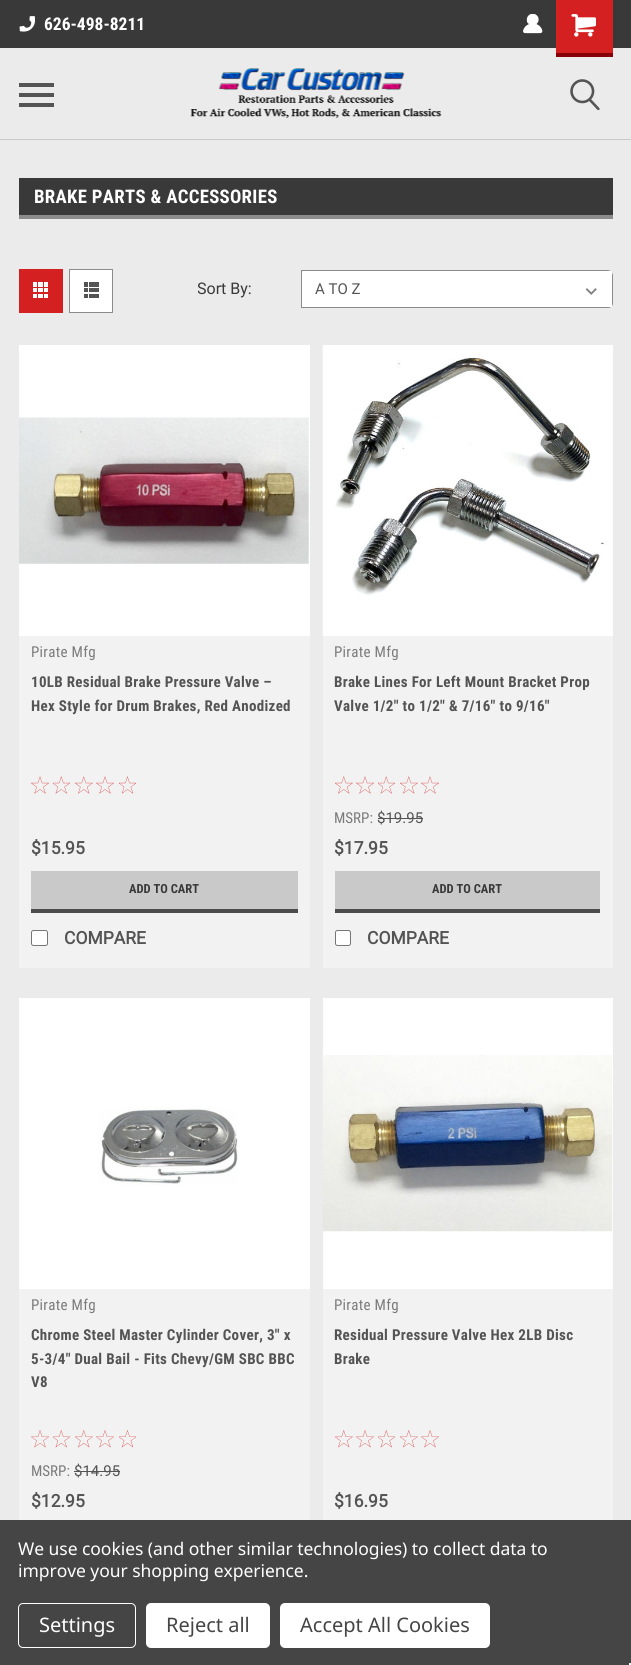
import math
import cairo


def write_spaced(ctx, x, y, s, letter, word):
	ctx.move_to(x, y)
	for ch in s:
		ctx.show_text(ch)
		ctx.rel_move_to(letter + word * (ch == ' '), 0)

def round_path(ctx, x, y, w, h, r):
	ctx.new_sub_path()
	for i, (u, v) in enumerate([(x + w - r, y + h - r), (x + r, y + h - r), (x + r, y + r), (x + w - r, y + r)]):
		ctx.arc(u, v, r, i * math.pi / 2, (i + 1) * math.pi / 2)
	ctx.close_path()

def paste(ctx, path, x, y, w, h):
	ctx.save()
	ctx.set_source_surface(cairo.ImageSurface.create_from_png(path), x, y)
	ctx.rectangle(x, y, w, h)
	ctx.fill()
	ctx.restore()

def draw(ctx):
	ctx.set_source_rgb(0.918, 0.918, 0.918)
	ctx.paint()
	ctx.set_source_rgb(0.792, 0.788, 0.788)
	ctx.rectangle(0, 139, 631, 1)
	ctx.fill()
	ctx.set_source_rgb(0.224, 0.224, 0.224)
	ctx.rectangle(0, 0, 631, 48)
	ctx.fill()
	paste(ctx, 'media/1.png', 19, 16, 16, 16)
	ctx.select_font_face('Roboto Condensed', cairo.FONT_SLANT_NORMAL, cairo.FONT_WEIGHT_BOLD)
	ctx.set_font_size(17.5)
	ctx.set_source_rgb(1, 1, 1)
	ctx.move_to(44, 30)
	ctx.show_text('626-498-8211')
	paste(ctx, 'media/2.png', 523, 14, 20, 20)
	ctx.set_source_rgb(0.831, 0.125, 0.125)
	ctx.rectangle(556, 0, 57, 53)
	ctx.fill()
	ctx.set_source_rgb(0.525, 0.004, 0.035)
	ctx.rectangle(556, 53, 57, 4)
	ctx.fill()
	paste(ctx, 'media/3.png', 571, 14, 25, 23)
	ctx.set_source_rgb(0.329, 0.329, 0.329)
	ctx.rectangle(19, 93, 35, 4)
	ctx.rectangle(19, 83, 35, 4)
	ctx.rectangle(19, 103, 35, 4)
	ctx.fill()
	paste(ctx, 'media/4.png', 190, 68, 252, 50)
	paste(ctx, 'media/5.png', 570, 79, 30, 31)
	ctx.set_source_rgb(0.224, 0.224, 0.224)
	ctx.rectangle(19, 178, 594, 37)
	ctx.fill()
	ctx.set_source_rgb(0.545, 0.545, 0.545)
	ctx.rectangle(19, 215, 594, 4)
	ctx.fill()
	ctx.set_font_size(18.75)
	ctx.set_source_rgb(1, 1, 1)
	write_spaced(ctx, 34, 203, 'BRAKE PARTS & ACCESSORIES', 0.3, 0)
	ctx.set_source_rgb(0.831, 0.125, 0.125)
	ctx.rectangle(19, 269, 44, 44)
	ctx.fill()
	paste(ctx, 'media/6.png', 33, 282, 15, 16)
	ctx.set_source_rgb(1, 1, 1)
	ctx.rectangle(69.5, 269.5, 43, 43)
	ctx.fill_preserve()
	ctx.set_source_rgb(0.545, 0.545, 0.545)
	ctx.set_line_width(1)
	ctx.stroke()
	paste(ctx, 'media/7.png', 84, 282, 15, 16)
	ctx.save()
	round_path(ctx, 198, 270, 415, 38, 5)
	ctx.clip()
	ctx.select_font_face('Roboto')
	ctx.set_font_size(16)
	ctx.set_source_rgb(0.224, 0.224, 0.224)
	ctx.move_to(197, 294)
	ctx.show_text('Sort By:')
	ctx.restore()
	ctx.set_source_rgb(1, 1, 1)
	ctx.new_path()
	ctx.move_to(301, 270)
	ctx.line_to(608, 270)
	ctx.curve_to(611, 270, 613, 272, 613, 275)
	ctx.line_to(613, 303)
	ctx.curve_to(613, 306, 611, 308, 608, 308)
	ctx.line_to(301, 308)
	ctx.close_path()
	ctx.fill()
	paste(ctx, 'media/8.png', 585, 288, 12, 7)
	ctx.set_source_rgb(0.545, 0.545, 0.545)
	ctx.set_fill_rule(cairo.FILL_RULE_EVEN_ODD)
	ctx.new_path()
	ctx.move_to(301, 270)
	ctx.line_to(301, 308)
	ctx.line_to(608, 308)
	ctx.curve_to(609, 308, 610, 308, 611, 307)
	ctx.line_to(302, 307)
	ctx.line_to(302, 271)
	ctx.line_to(611, 271)
	ctx.line_to(608, 270)
	ctx.close_path()
	ctx.move_to(613, 275)
	ctx.line_to(612, 272)
	ctx.line_to(612, 306)
	ctx.curve_to(613, 305, 613, 304, 613, 303)
	ctx.close_path()
	ctx.fill()
	ctx.select_font_face('Roboto')
	ctx.set_font_size(15)
	ctx.set_source_rgb(0.329, 0.329, 0.329)
	ctx.move_to(315, 294)
	ctx.show_text('A TO Z')
	ctx.set_source_rgb(0.949, 0.949, 0.949)
	ctx.rectangle(19, 636, 291, 332)
	ctx.fill()
	ctx.set_source_rgb(1, 1, 1)
	ctx.rectangle(19, 345, 291, 291)
	ctx.fill()
	paste(ctx, 'media/9.png', 19, 417, 290, 147)
	ctx.select_font_face('Roboto Condensed')
	ctx.set_source_rgb(0.482, 0.482, 0.482)
	write_spaced(ctx, 31, 657, 'Pirate Mfg', 0.3, 0)
	ctx.select_font_face('Roboto Condensed', cairo.FONT_SLANT_NORMAL, cairo.FONT_WEIGHT_BOLD)
	ctx.set_source_rgb(0.329, 0.329, 0.329)
	write_spaced(ctx, 31, 687, '10LB Residual Brake Pressure Valve –', 0.3, 0)
	write_spaced(ctx, 31, 711, 'Hex Style for Drum Brakes, Red Anodized', 0.3, 0)
	paste(ctx, 'media/10.png', 31, 776, 18, 18)
	paste(ctx, 'media/11.png', 53, 776, 17, 18)
	paste(ctx, 'media/12.png', 75, 776, 18, 18)
	paste(ctx, 'media/10.png', 96, 776, 18, 18)
	paste(ctx, 'media/13.png', 119, 776, 17, 18)
	ctx.select_font_face('Roboto', cairo.FONT_SLANT_NORMAL, cairo.FONT_WEIGHT_BOLD)
	ctx.set_font_size(17.5)
	ctx.move_to(31, 854)
	ctx.show_text('$15.95')
	ctx.set_source_rgb(0.792, 0.788, 0.788)
	ctx.rectangle(31, 871, 267, 38)
	ctx.fill()
	ctx.set_source_rgb(0.298, 0.298, 0.298)
	ctx.rectangle(31, 909, 267, 4)
	ctx.fill()
	ctx.select_font_face('Roboto Condensed', cairo.FONT_SLANT_NORMAL, cairo.FONT_WEIGHT_BOLD)
	ctx.set_font_size(12.5)
	ctx.set_source_rgb(0.224, 0.224, 0.224)
	ctx.move_to(129, 893)
	ctx.show_text('ADD TO CART')
	ctx.set_source_rgb(1, 1, 1)
	round_path(ctx, 31.5, 930.5, 16, 15, 2)
	ctx.fill_preserve()
	ctx.set_source_rgb(0.463, 0.463, 0.463)
	ctx.stroke()
	ctx.select_font_face('Roboto', cairo.FONT_SLANT_NORMAL, cairo.FONT_WEIGHT_BOLD)
	ctx.set_font_size(17.5)
	ctx.set_source_rgb(0.329, 0.329, 0.329)
	ctx.move_to(64, 944)
	ctx.show_text('COMPARE')
	ctx.set_source_rgb(0.949, 0.949, 0.949)
	ctx.rectangle(323, 636, 290, 332)
	ctx.fill()
	ctx.set_source_rgb(1, 1, 1)
	ctx.rectangle(605, 345, 8, 291)
	ctx.fill()
	paste(ctx, 'media/14.png', 322, 345, 283, 291)
	ctx.select_font_face('Roboto Condensed')
	ctx.set_font_size(15)
	ctx.set_source_rgb(0.482, 0.482, 0.482)
	write_spaced(ctx, 334, 657, 'Pirate Mfg', 0.3, 0)
	ctx.select_font_face('Roboto Condensed', cairo.FONT_SLANT_NORMAL, cairo.FONT_WEIGHT_BOLD)
	ctx.set_source_rgb(0.329, 0.329, 0.329)
	write_spaced(ctx, 334, 687, 'Brake Lines For Left Mount Bracket Prop', 0.3, 0)
	write_spaced(ctx, 334, 711, 'Valve 1/2" to 1/2" & 7/16" to 9/16"', 0.3, 0)
	paste(ctx, 'media/12.png', 335, 776, 18, 18)
	paste(ctx, 'media/10.png', 356, 776, 18, 18)
	paste(ctx, 'media/11.png', 378, 776, 17, 18)
	paste(ctx, 'media/12.png', 400, 776, 18, 18)
	paste(ctx, 'media/10.png', 421, 776, 18, 18)
	ctx.select_font_face('Roboto Condensed')
	ctx.set_source_rgb(0.482, 0.482, 0.482)
	ctx.move_to(334, 823)
	ctx.show_text('MSRP:')
	ctx.select_font_face('Roboto')
	ctx.set_source_rgb(0.329, 0.329, 0.329)
	ctx.move_to(377, 823)
	ctx.show_text('$19.95')
	ctx.rectangle(378, 818, 45, 1)
	ctx.fill()
	ctx.select_font_face('Roboto', cairo.FONT_SLANT_NORMAL, cairo.FONT_WEIGHT_BOLD)
	ctx.set_font_size(17.5)
	ctx.move_to(334, 854)
	ctx.show_text('$17.95')
	ctx.set_source_rgb(0.792, 0.788, 0.788)
	ctx.rectangle(335, 871, 265, 38)
	ctx.fill()
	ctx.set_source_rgb(0.298, 0.298, 0.298)
	ctx.rectangle(335, 909, 265, 4)
	ctx.fill()
	ctx.select_font_face('Roboto Condensed', cairo.FONT_SLANT_NORMAL, cairo.FONT_WEIGHT_BOLD)
	ctx.set_font_size(12.5)
	ctx.set_source_rgb(0.224, 0.224, 0.224)
	ctx.move_to(432, 893)
	ctx.show_text('ADD TO CART')
	ctx.set_source_rgb(1, 1, 1)
	round_path(ctx, 335.5, 930.5, 15, 15, 2)
	ctx.fill_preserve()
	ctx.set_source_rgb(0.463, 0.463, 0.463)
	ctx.stroke()
	ctx.select_font_face('Roboto', cairo.FONT_SLANT_NORMAL, cairo.FONT_WEIGHT_BOLD)
	ctx.set_font_size(17.5)
	ctx.set_source_rgb(0.329, 0.329, 0.329)
	ctx.move_to(367, 944)
	ctx.show_text('COMPARE')
	ctx.set_source_rgb(0.949, 0.949, 0.949)
	ctx.rectangle(19, 1289, 291, 231)
	ctx.fill()
	ctx.set_source_rgb(1, 1, 1)
	ctx.rectangle(19, 998, 291, 291)
	ctx.fill()
	paste(ctx, 'media/15.png', 98, 1107, 140, 78)
	ctx.select_font_face('Roboto Condensed')
	ctx.set_font_size(15)
	ctx.set_source_rgb(0.482, 0.482, 0.482)
	write_spaced(ctx, 31, 1310, 'Pirate Mfg', 0.3, 0)
	ctx.select_font_face('Roboto Condensed', cairo.FONT_SLANT_NORMAL, cairo.FONT_WEIGHT_BOLD)
	ctx.set_source_rgb(0.329, 0.329, 0.329)
	for x, y, s in [
		(31, 1340, 'Chrome Steel Master Cylinder Cover, 3" x'),
		(31, 1364, '5-3/4" Dual Bail - Fits Chevy/GM SBC BBC'),
		(31, 1387, 'V8'),
	]:
		write_spaced(ctx, x, y, s, 0.3, 0)
	paste(ctx, 'media/16.png', 31, 1430, 18, 18)
	paste(ctx, 'media/17.png', 53, 1430, 17, 18)
	paste(ctx, 'media/18.png', 75, 1430, 18, 18)
	paste(ctx, 'media/16.png', 96, 1430, 18, 18)
	paste(ctx, 'media/19.png', 119, 1430, 17, 18)
	ctx.select_font_face('Roboto Condensed')
	ctx.set_source_rgb(0.482, 0.482, 0.482)
	ctx.move_to(31, 1476)
	ctx.show_text('MSRP:')
	ctx.select_font_face('Roboto')
	ctx.set_source_rgb(0.329, 0.329, 0.329)
	ctx.move_to(74, 1476)
	ctx.show_text('$14.95')
	ctx.rectangle(74, 1471, 46, 1)
	ctx.fill()
	ctx.select_font_face('Roboto', cairo.FONT_SLANT_NORMAL, cairo.FONT_WEIGHT_BOLD)
	ctx.set_font_size(17.5)
	ctx.move_to(31, 1507)
	ctx.show_text('$12.95')
	ctx.set_source_rgb(0.949, 0.949, 0.949)
	ctx.rectangle(323, 1289, 290, 231)
	ctx.fill()
	ctx.set_source_rgb(1, 1, 1)
	ctx.rectangle(323, 998, 290, 291)
	ctx.fill()
	paste(ctx, 'media/20.png', 322, 1055, 291, 177)
	ctx.select_font_face('Roboto Condensed')
	ctx.set_font_size(15)
	ctx.set_source_rgb(0.482, 0.482, 0.482)
	write_spaced(ctx, 334, 1310, 'Pirate Mfg', 0.3, 0)
	ctx.select_font_face('Roboto Condensed', cairo.FONT_SLANT_NORMAL, cairo.FONT_WEIGHT_BOLD)
	ctx.set_source_rgb(0.329, 0.329, 0.329)
	write_spaced(ctx, 334, 1340, 'Residual Pressure Valve Hex 2LB Disc', 0.3, 0)
	write_spaced(ctx, 334, 1364, 'Brake', 0.3, 0)
	paste(ctx, 'media/18.png', 335, 1430, 18, 18)
	paste(ctx, 'media/16.png', 356, 1430, 18, 18)
	paste(ctx, 'media/17.png', 378, 1430, 17, 18)
	paste(ctx, 'media/18.png', 400, 1430, 18, 18)
	paste(ctx, 'media/16.png', 421, 1430, 18, 18)
	ctx.select_font_face('Roboto', cairo.FONT_SLANT_NORMAL, cairo.FONT_WEIGHT_BOLD)
	ctx.set_font_size(17.5)
	ctx.move_to(334, 1507)
	ctx.show_text('$16.95')
	ctx.set_source_rgb(0.271, 0.271, 0.271)
	ctx.rectangle(0, 1520, 631, 145)
	ctx.fill()
	ctx.select_font_face('Noto Sans')
	ctx.set_source_rgb(1, 1, 1)
	write_spaced(ctx, 18, 1555, 'We use cookies (and other similar technologies) to collect data to', -0.05, 0)
	write_spaced(ctx, 18, 1577, 'improve your shopping experience.', -0.05, 0)
	round_path(ctx, 18.5, 1603.5, 117, 44, 4.5)
	ctx.stroke()
	ctx.set_font_size(20)
	ctx.move_to(39, 1632)
	ctx.show_text('Settings')
	round_path(ctx, 146, 1603, 124, 45, 5)
	ctx.fill()
	ctx.set_source_rgb(0.271, 0.271, 0.271)
	ctx.move_to(166, 1632)
	ctx.show_text('Reject all')
	ctx.set_source_rgb(1, 1, 1)
	round_path(ctx, 280, 1603, 210, 45, 5)
	ctx.fill()
	ctx.set_source_rgb(0.271, 0.271, 0.271)
	ctx.move_to(300, 1632)
	ctx.show_text('Accept All Cookies')
	ctx.set_source_rgb(0.961, 0.961, 0.961)
	ctx.rectangle(629, 1663, 2, 2)
	ctx.fill()


surface = cairo.ImageSurface(cairo.FORMAT_RGB24, 631, 1665)
ctx = cairo.Context(surface)
options = cairo.FontOptions()
options.set_hint_metrics(cairo.HINT_METRICS_OFF)
options.set_hint_style(cairo.HINT_STYLE_NONE)
ctx.set_font_options(options)
ctx.set_miter_limit(4)
draw(ctx)
surface.write_to_png('image.png')
